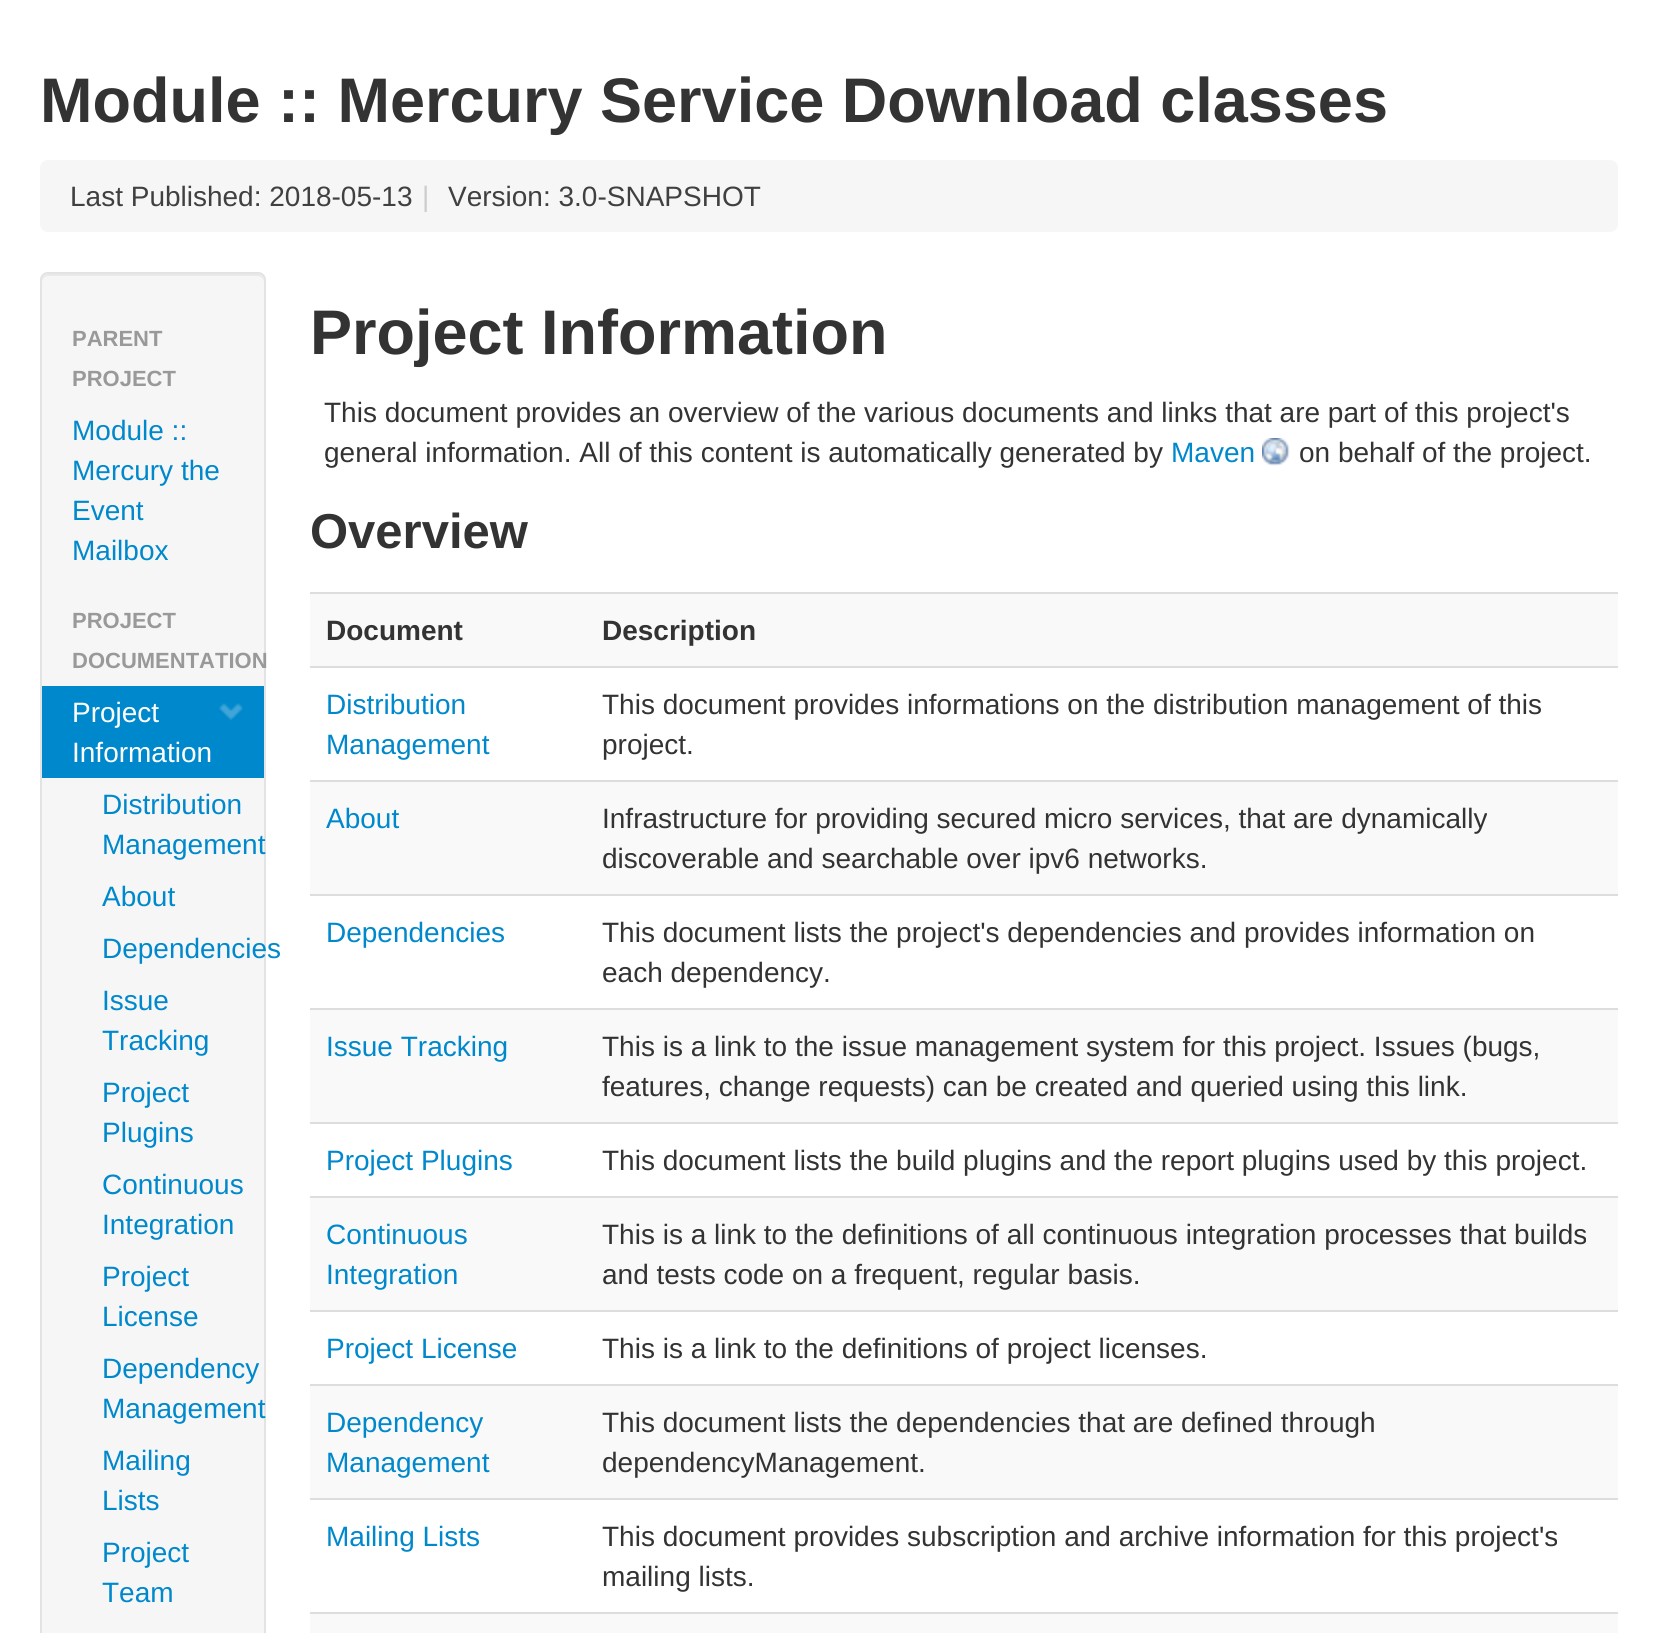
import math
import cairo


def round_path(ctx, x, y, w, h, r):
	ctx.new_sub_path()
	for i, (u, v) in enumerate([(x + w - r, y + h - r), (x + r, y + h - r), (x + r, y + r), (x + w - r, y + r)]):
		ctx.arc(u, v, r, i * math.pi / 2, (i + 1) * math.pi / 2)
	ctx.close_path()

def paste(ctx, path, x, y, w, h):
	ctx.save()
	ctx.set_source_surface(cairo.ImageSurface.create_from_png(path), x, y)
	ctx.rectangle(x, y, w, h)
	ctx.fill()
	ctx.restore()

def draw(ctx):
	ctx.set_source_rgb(1, 1, 1)
	ctx.paint()
	ctx.select_font_face('Liberation Sans', cairo.FONT_SLANT_NORMAL, cairo.FONT_WEIGHT_BOLD)
	ctx.set_font_size(63)
	ctx.set_source_rgb(0.2, 0.2, 0.2)
	ctx.move_to(40, 122)
	ctx.show_text('Module :: Mercury Service Download classes')
	ctx.set_source_rgb(0.961, 0.961, 0.961)
	round_path(ctx, 40, 160, 1578, 72, 8)
	ctx.fill()
	ctx.select_font_face('Liberation Sans')
	ctx.set_font_size(28)
	ctx.set_source_rgb(0.251, 0.251, 0.251)
	ctx.move_to(70, 206)
	ctx.show_text('Last Published: 2018-05-13')
	ctx.set_source_rgb(0.8, 0.8, 0.8)
	ctx.move_to(422, 206)
	ctx.show_text('|')
	ctx.set_source_rgb(0.251, 0.251, 0.251)
	ctx.move_to(448, 206)
	ctx.show_text('Version: 3.0-SNAPSHOT')
	ctx.set_source_rgb(0.961, 0.961, 0.961)
	round_path(ctx, 40, 272, 226, 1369, 8)
	ctx.fill()
	ctx.set_source_rgb(0.914, 0.914, 0.914)
	ctx.new_path()
	ctx.move_to(48, 276)
	ctx.line_to(258, 276)
	ctx.curve_to(261, 276, 264, 279, 264, 282)
	ctx.line_to(264, 280)
	ctx.curve_to(264, 277, 261, 274, 258, 274)
	ctx.line_to(48, 274)
	ctx.curve_to(45, 274, 42, 277, 42, 280)
	ctx.line_to(42, 282)
	ctx.curve_to(42, 279, 45, 276, 48, 276)
	ctx.close_path()
	ctx.fill()
	round_path(ctx, 41, 273, 224, 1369, 7)
	ctx.set_source_rgb(0.89, 0.89, 0.89)
	ctx.stroke()
	ctx.select_font_face('Liberation Sans', cairo.FONT_SLANT_NORMAL, cairo.FONT_WEIGHT_BOLD)
	ctx.set_font_size(22)
	ctx.set_source_rgb(0.6, 0.6, 0.6)
	ctx.move_to(72, 346)
	ctx.show_text('PARENT')
	ctx.move_to(72, 386)
	ctx.show_text('PROJECT')
	ctx.select_font_face('Liberation Sans')
	ctx.set_font_size(28)
	ctx.set_source_rgb(0, 0.533, 0.8)
	for x, y, s in [
		(72, 440, 'Module ::'),
		(72, 480, 'Mercury the'),
		(72, 520, 'Event'),
		(72, 560, 'Mailbox'),
	]:
		ctx.move_to(x, y)
		ctx.show_text(s)
	ctx.select_font_face('Liberation Sans', cairo.FONT_SLANT_NORMAL, cairo.FONT_WEIGHT_BOLD)
	ctx.set_font_size(22)
	ctx.set_source_rgb(0.6, 0.6, 0.6)
	ctx.move_to(72, 628)
	ctx.show_text('PROJECT')
	ctx.move_to(72, 668)
	ctx.show_text('DOCUMENTATION')
	ctx.set_source_rgb(0, 0.533, 0.8)
	ctx.rectangle(42, 686, 222, 92)
	ctx.fill()
	ctx.select_font_face('Liberation Sans')
	ctx.set_font_size(28)
	ctx.set_source_rgb(1, 1, 1)
	ctx.move_to(72, 722)
	ctx.show_text('Project')
	paste(ctx, 'media/1.png', 219, 703, 24, 18)
	ctx.move_to(72, 762)
	ctx.show_text('Information')
	ctx.set_source_rgb(0, 0.533, 0.8)
	for x, y, s in [
		(102, 814, 'Distribution'),
		(102, 854, 'Management'),
		(102, 906, 'About'),
		(102, 958, 'Dependencies'),
		(102, 1010, 'Issue'),
		(102, 1050, 'Tracking'),
		(102, 1102, 'Project'),
		(102, 1142, 'Plugins'),
		(102, 1194, 'Continuous'),
		(102, 1234, 'Integration'),
		(102, 1286, 'Project'),
		(102, 1326, 'License'),
		(102, 1378, 'Dependency'),
		(102, 1418, 'Management'),
		(102, 1470, 'Mailing'),
		(102, 1510, 'Lists'),
		(102, 1562, 'Project'),
		(102, 1602, 'Team'),
	]:
		ctx.move_to(x, y)
		ctx.show_text(s)
	ctx.select_font_face('Liberation Sans', cairo.FONT_SLANT_NORMAL, cairo.FONT_WEIGHT_BOLD)
	ctx.set_font_size(63)
	ctx.set_source_rgb(0.2, 0.2, 0.2)
	ctx.move_to(310, 354)
	ctx.show_text('Project Information')
	ctx.select_font_face('Liberation Sans')
	ctx.set_font_size(28)
	ctx.move_to(324, 422)
	ctx.show_text('This document provides an overview of the various documents and links that are part of this project\'s')
	ctx.move_to(324, 462)
	ctx.show_text('general information. All of this content is automatically generated by')
	ctx.set_source_rgb(0, 0.533, 0.8)
	ctx.move_to(1171, 462)
	ctx.show_text('Maven')
	paste(ctx, 'media/2.png', 1262, 438, 28, 28)
	ctx.set_source_rgb(0.2, 0.2, 0.2)
	ctx.move_to(1299, 462)
	ctx.show_text('on behalf of the project.')
	ctx.select_font_face('Liberation Sans', cairo.FONT_SLANT_NORMAL, cairo.FONT_WEIGHT_BOLD)
	ctx.set_font_size(49)
	ctx.move_to(310, 548)
	ctx.show_text('Overview')
	ctx.set_source_rgb(0.976, 0.976, 0.976)
	ctx.rectangle(310, 594, 1308, 72)
	ctx.fill()
	ctx.set_font_size(28)
	ctx.set_source_rgb(0.2, 0.2, 0.2)
	ctx.move_to(326, 640)
	ctx.show_text('Document')
	ctx.set_source_rgb(0.867, 0.867, 0.867)
	ctx.rectangle(310, 592, 1308, 2)
	ctx.fill()
	ctx.set_source_rgb(0.2, 0.2, 0.2)
	ctx.move_to(602, 640)
	ctx.show_text('Description')
	ctx.select_font_face('Liberation Sans')
	ctx.set_source_rgb(0, 0.533, 0.8)
	ctx.move_to(326, 714)
	ctx.show_text('Distribution')
	ctx.move_to(326, 754)
	ctx.show_text('Management')
	ctx.set_source_rgb(0.867, 0.867, 0.867)
	ctx.rectangle(310, 666, 1308, 2)
	ctx.fill()
	ctx.set_source_rgb(0.2, 0.2, 0.2)
	ctx.move_to(602, 714)
	ctx.show_text('This document provides informations on the distribution management of this')
	ctx.move_to(602, 754)
	ctx.show_text('project.')
	ctx.set_source_rgb(0.976, 0.976, 0.976)
	ctx.rectangle(310, 782, 1308, 112)
	ctx.fill()
	ctx.set_source_rgb(0, 0.533, 0.8)
	ctx.move_to(326, 828)
	ctx.show_text('About')
	ctx.set_source_rgb(0.867, 0.867, 0.867)
	ctx.rectangle(310, 780, 1308, 2)
	ctx.fill()
	ctx.set_source_rgb(0.2, 0.2, 0.2)
	ctx.move_to(602, 828)
	ctx.show_text('Infrastructure for providing secured micro services, that are dynamically')
	ctx.move_to(602, 868)
	ctx.show_text('discoverable and searchable over ipv6 networks.')
	ctx.set_source_rgb(0, 0.533, 0.8)
	ctx.move_to(326, 942)
	ctx.show_text('Dependencies')
	ctx.set_source_rgb(0.867, 0.867, 0.867)
	ctx.rectangle(310, 894, 1308, 2)
	ctx.fill()
	ctx.set_source_rgb(0.2, 0.2, 0.2)
	ctx.move_to(602, 942)
	ctx.show_text('This document lists the project\'s dependencies and provides information on')
	ctx.move_to(602, 982)
	ctx.show_text('each dependency.')
	ctx.set_source_rgb(0.976, 0.976, 0.976)
	ctx.rectangle(310, 1010, 1308, 112)
	ctx.fill()
	ctx.set_source_rgb(0, 0.533, 0.8)
	ctx.move_to(326, 1056)
	ctx.show_text('Issue Tracking')
	ctx.set_source_rgb(0.867, 0.867, 0.867)
	ctx.rectangle(310, 1008, 1308, 2)
	ctx.fill()
	ctx.set_source_rgb(0.2, 0.2, 0.2)
	ctx.move_to(602, 1056)
	ctx.show_text('This is a link to the issue management system for this project. Issues (bugs,')
	ctx.move_to(602, 1096)
	ctx.show_text('features, change requests) can be created and queried using this link.')
	ctx.set_source_rgb(0, 0.533, 0.8)
	ctx.move_to(326, 1170)
	ctx.show_text('Project Plugins')
	ctx.set_source_rgb(0.867, 0.867, 0.867)
	ctx.rectangle(310, 1122, 1308, 2)
	ctx.fill()
	ctx.set_source_rgb(0.2, 0.2, 0.2)
	ctx.move_to(602, 1170)
	ctx.show_text('This document lists the build plugins and the report plugins used by this project.')
	ctx.set_source_rgb(0.976, 0.976, 0.976)
	ctx.rectangle(310, 1198, 1308, 112)
	ctx.fill()
	ctx.set_source_rgb(0, 0.533, 0.8)
	ctx.move_to(326, 1244)
	ctx.show_text('Continuous')
	ctx.move_to(326, 1284)
	ctx.show_text('Integration')
	ctx.set_source_rgb(0.867, 0.867, 0.867)
	ctx.rectangle(310, 1196, 1308, 2)
	ctx.fill()
	ctx.set_source_rgb(0.2, 0.2, 0.2)
	ctx.move_to(602, 1244)
	ctx.show_text('This is a link to the definitions of all continuous integration processes that builds')
	ctx.move_to(602, 1284)
	ctx.show_text('and tests code on a frequent, regular basis.')
	ctx.set_source_rgb(0, 0.533, 0.8)
	ctx.move_to(326, 1358)
	ctx.show_text('Project License')
	ctx.set_source_rgb(0.867, 0.867, 0.867)
	ctx.rectangle(310, 1310, 1308, 2)
	ctx.fill()
	ctx.set_source_rgb(0.2, 0.2, 0.2)
	ctx.move_to(602, 1358)
	ctx.show_text('This is a link to the definitions of project licenses.')
	ctx.set_source_rgb(0.976, 0.976, 0.976)
	ctx.rectangle(310, 1386, 1308, 112)
	ctx.fill()
	ctx.set_source_rgb(0, 0.533, 0.8)
	ctx.move_to(326, 1432)
	ctx.show_text('Dependency')
	ctx.move_to(326, 1472)
	ctx.show_text('Management')
	ctx.set_source_rgb(0.867, 0.867, 0.867)
	ctx.rectangle(310, 1384, 1308, 2)
	ctx.fill()
	ctx.set_source_rgb(0.2, 0.2, 0.2)
	ctx.move_to(602, 1432)
	ctx.show_text('This document lists the dependencies that are defined through')
	ctx.move_to(602, 1472)
	ctx.show_text('dependencyManagement.')
	ctx.set_source_rgb(0, 0.533, 0.8)
	ctx.move_to(326, 1546)
	ctx.show_text('Mailing Lists')
	ctx.set_source_rgb(0.867, 0.867, 0.867)
	ctx.rectangle(310, 1498, 1308, 2)
	ctx.fill()
	ctx.set_source_rgb(0.2, 0.2, 0.2)
	ctx.move_to(602, 1546)
	ctx.show_text('This document provides subscription and archive information for this project\'s')
	ctx.move_to(602, 1586)
	ctx.show_text('mailing lists.')
	ctx.set_source_rgb(0.867, 0.867, 0.867)
	ctx.rectangle(310, 1612, 1308, 2)
	ctx.fill()
	ctx.set_source_rgb(0.976, 0.976, 0.976)
	ctx.rectangle(310, 1614, 1308, 19)
	ctx.fill()


surface = cairo.ImageSurface(cairo.FORMAT_RGB24, 1658, 1633)
ctx = cairo.Context(surface)
options = cairo.FontOptions()
options.set_hint_metrics(cairo.HINT_METRICS_OFF)
options.set_hint_style(cairo.HINT_STYLE_NONE)
ctx.set_font_options(options)
ctx.set_miter_limit(4)
draw(ctx)
surface.write_to_png('image.png')
